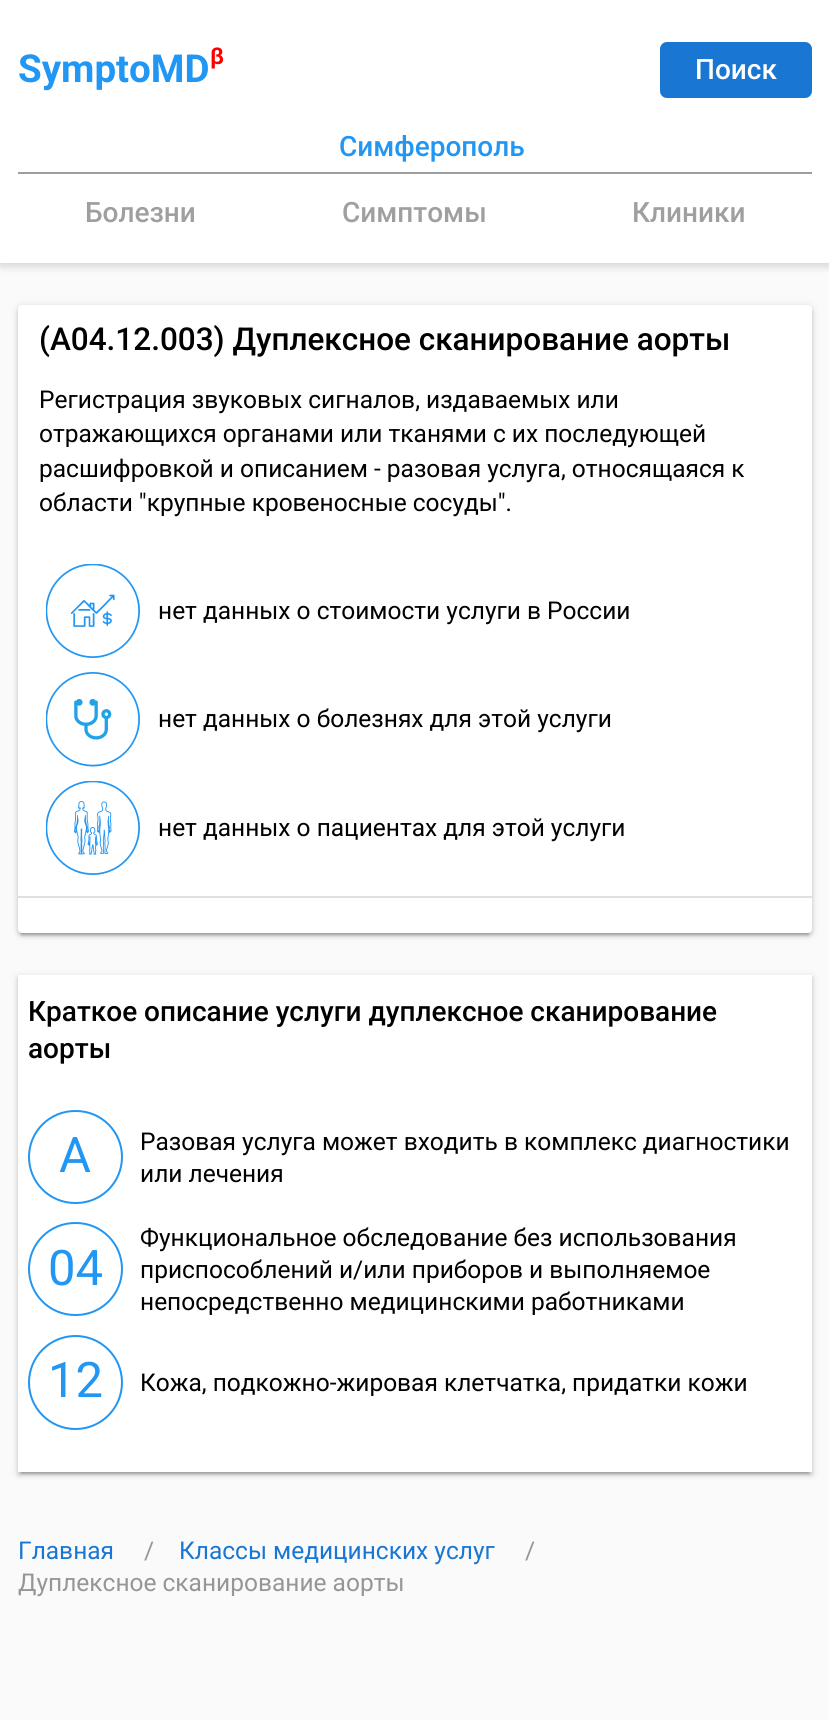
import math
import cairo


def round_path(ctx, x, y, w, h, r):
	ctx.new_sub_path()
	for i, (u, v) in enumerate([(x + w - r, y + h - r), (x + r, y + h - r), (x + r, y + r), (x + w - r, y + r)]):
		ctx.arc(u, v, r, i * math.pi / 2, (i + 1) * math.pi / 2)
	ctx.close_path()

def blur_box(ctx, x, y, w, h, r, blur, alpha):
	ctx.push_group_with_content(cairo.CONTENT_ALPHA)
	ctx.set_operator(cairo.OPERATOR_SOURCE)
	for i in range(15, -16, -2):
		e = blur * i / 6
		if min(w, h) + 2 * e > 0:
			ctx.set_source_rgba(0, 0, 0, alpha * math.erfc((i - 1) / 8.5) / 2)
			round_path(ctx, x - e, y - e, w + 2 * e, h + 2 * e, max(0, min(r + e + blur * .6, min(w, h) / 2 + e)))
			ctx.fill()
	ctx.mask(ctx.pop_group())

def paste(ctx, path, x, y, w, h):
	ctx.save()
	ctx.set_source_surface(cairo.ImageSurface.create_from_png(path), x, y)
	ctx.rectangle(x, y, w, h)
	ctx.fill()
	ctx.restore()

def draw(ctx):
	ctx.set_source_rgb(0.98, 0.98, 0.98)
	ctx.paint()
	ctx.set_source_rgb(0, 0, 0)
	blur_box(ctx, 0, 4, 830, 262, 0, 4.5, 0.16)
	ctx.set_source_rgb(1, 1, 1)
	ctx.rectangle(0, 0, 829, 263)
	ctx.fill()
	ctx.select_font_face('Roboto', cairo.FONT_SLANT_NORMAL, cairo.FONT_WEIGHT_BOLD)
	ctx.set_font_size(38.5)
	ctx.set_source_rgb(0.129, 0.588, 0.953)
	ctx.move_to(18, 82)
	ctx.show_text('SymptoMD')
	ctx.set_font_size(23)
	ctx.set_source_rgb(1, 0, 0)
	ctx.move_to(210, 64)
	ctx.show_text('β')
	ctx.set_source_rgb(0.098, 0.463, 0.824)
	round_path(ctx, 660, 42, 152, 56, 7)
	ctx.fill()
	ctx.select_font_face('Roboto Medium')
	ctx.set_font_size(28)
	ctx.set_source_rgb(1, 1, 1)
	ctx.move_to(695, 79)
	ctx.show_text('Поиск')
	ctx.set_source_rgb(0.129, 0.588, 0.953)
	ctx.move_to(339, 156)
	ctx.show_text('Симферополь')
	ctx.set_source_rgb(0.62, 0.62, 0.62)
	ctx.rectangle(18, 172, 794, 2)
	ctx.fill()
	ctx.set_source_rgb(0.624, 0.624, 0.624)
	for x, y, s in [
		(85, 222, 'Болезни'),
		(342, 222, 'Симптомы'),
		(632, 222, 'Клиники'),
	]:
		ctx.move_to(x, y)
		ctx.show_text(s)
	ctx.set_source_rgb(0, 0, 0)
	blur_box(ctx, 18, 306, 794, 629, 4, 4.5, 0.12)
	blur_box(ctx, 18, 308, 794, 628, 4, 2, 0.14)
	blur_box(ctx, 21, 313, 788, 622, 0, 1, 0.2)
	ctx.set_source_rgb(1, 1, 1)
	round_path(ctx, 18, 305, 794, 628, 4)
	ctx.fill()
	ctx.set_font_size(31.5)
	ctx.set_source_rgb(0, 0, 0)
	ctx.move_to(39, 350)
	ctx.show_text('(A04.12.003) Дуплексное сканирование аорты')
	ctx.select_font_face('Roboto')
	ctx.set_font_size(24.5)
	for x, y, s in [
		(39, 408, 'Регистрация звуковых сигналов, издаваемых или'),
		(39, 442, 'отражающихся органами или тканями с их последующей'),
		(39, 477, 'расшифровкой и описанием - разовая услуга, относящаяся к'),
		(39, 511, 'области "крупные кровеносные сосуды".'),
	]:
		ctx.move_to(x, y)
		ctx.show_text(s)
	paste(ctx, 'media/1.png', 46, 564, 94, 94)
	ctx.move_to(158, 619)
	ctx.show_text('нет данных о стоимости услуги в России')
	paste(ctx, 'media/2.png', 46, 672, 94, 95)
	ctx.move_to(158, 727)
	ctx.show_text('нет данных о болезнях для этой услуги')
	paste(ctx, 'media/3.png', 46, 781, 94, 94)
	ctx.move_to(158, 836)
	ctx.show_text('нет данных о пациентах для этой услуги')
	ctx.set_source_rgb(0.878, 0.878, 0.878)
	ctx.rectangle(18, 896, 794, 2)
	ctx.fill()
	ctx.set_source_rgb(0, 0, 0)
	blur_box(ctx, 18, 977, 794, 497, 0, 4.5, 0.12)
	blur_box(ctx, 18, 978, 794, 497, 0, 2, 0.14)
	blur_box(ctx, 21, 984, 788, 490, 0, 1, 0.2)
	ctx.set_source_rgb(1, 1, 1)
	ctx.rectangle(18, 975, 794, 497)
	ctx.fill()
	ctx.select_font_face('Roboto Medium')
	ctx.set_font_size(28)
	ctx.set_source_rgb(0, 0, 0)
	ctx.move_to(28, 1021)
	ctx.show_text('Краткое описание услуги дуплексное сканирование')
	ctx.move_to(28, 1058)
	ctx.show_text('аорты')
	round_path(ctx, 29, 1111, 93, 92, 46)
	ctx.set_source_rgb(0.129, 0.588, 0.953)
	ctx.stroke()
	ctx.select_font_face('Roboto')
	ctx.set_font_size(49)
	ctx.move_to(59, 1172)
	ctx.show_text('A')
	ctx.set_font_size(24.5)
	ctx.set_source_rgb(0, 0, 0)
	ctx.move_to(140, 1150)
	ctx.show_text('Разовая услуга может входить в комплекс диагностики')
	ctx.move_to(140, 1182)
	ctx.show_text('или лечения')
	round_path(ctx, 29, 1223, 93, 92, 46)
	ctx.set_source_rgb(0.129, 0.588, 0.953)
	ctx.stroke()
	ctx.set_font_size(49)
	ctx.move_to(48, 1285)
	ctx.show_text('04')
	ctx.set_font_size(24.5)
	ctx.set_source_rgb(0, 0, 0)
	for x, y, s in [
		(140, 1246, 'Функциональное обследование без использования'),
		(140, 1278, 'приспособлений и/или приборов и выполняемое'),
		(140, 1310, 'непосредственно медицинскими работниками'),
	]:
		ctx.move_to(x, y)
		ctx.show_text(s)
	ctx.new_path()
	ctx.arc(75.5, 1382.5, 46.5, 0, 2 * math.pi)
	ctx.set_source_rgb(0.129, 0.588, 0.953)
	ctx.stroke()
	ctx.set_font_size(49)
	ctx.move_to(48, 1397)
	ctx.show_text('12')
	ctx.set_font_size(24.5)
	ctx.set_source_rgb(0, 0, 0)
	ctx.move_to(140, 1391)
	ctx.show_text('Кожа, подкожно-жировая клетчатка, придатки кожи')
	ctx.set_source_rgb(0.098, 0.463, 0.824)
	ctx.move_to(18, 1559)
	ctx.show_text('Главная')
	ctx.set_source_rgb(0.588, 0.588, 0.588)
	ctx.move_to(144, 1559)
	ctx.show_text('/')
	ctx.set_source_rgb(0.098, 0.463, 0.824)
	ctx.move_to(179, 1559)
	ctx.show_text('Классы медицинских услуг')
	ctx.set_source_rgb(0.588, 0.588, 0.588)
	ctx.move_to(525, 1559)
	ctx.show_text('/')
	ctx.move_to(18, 1591)
	ctx.show_text('Дуплексное сканирование аорты')


surface = cairo.ImageSurface(cairo.FORMAT_RGB24, 829, 1720)
ctx = cairo.Context(surface)
options = cairo.FontOptions()
options.set_hint_metrics(cairo.HINT_METRICS_OFF)
options.set_hint_style(cairo.HINT_STYLE_NONE)
ctx.set_font_options(options)
ctx.set_miter_limit(4)
draw(ctx)
surface.write_to_png('image.png')
